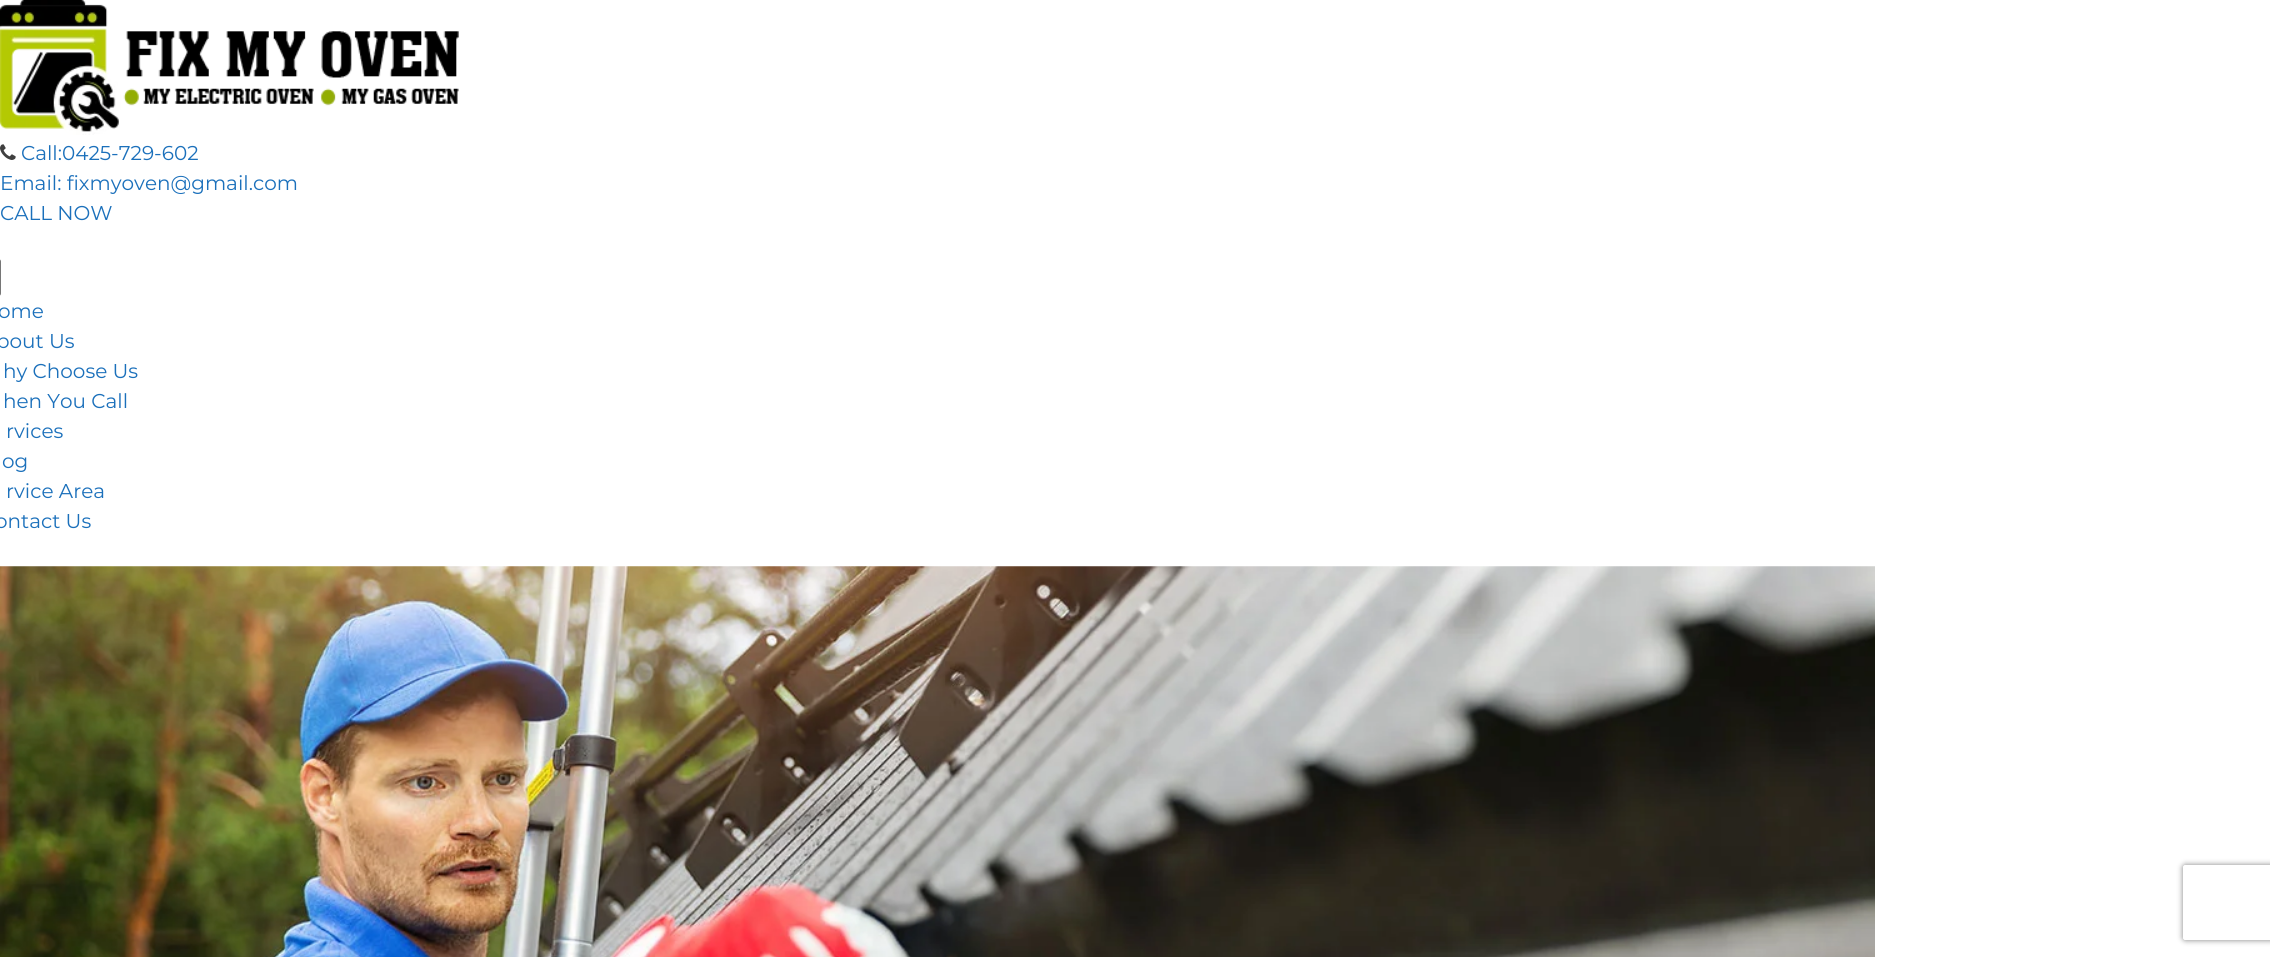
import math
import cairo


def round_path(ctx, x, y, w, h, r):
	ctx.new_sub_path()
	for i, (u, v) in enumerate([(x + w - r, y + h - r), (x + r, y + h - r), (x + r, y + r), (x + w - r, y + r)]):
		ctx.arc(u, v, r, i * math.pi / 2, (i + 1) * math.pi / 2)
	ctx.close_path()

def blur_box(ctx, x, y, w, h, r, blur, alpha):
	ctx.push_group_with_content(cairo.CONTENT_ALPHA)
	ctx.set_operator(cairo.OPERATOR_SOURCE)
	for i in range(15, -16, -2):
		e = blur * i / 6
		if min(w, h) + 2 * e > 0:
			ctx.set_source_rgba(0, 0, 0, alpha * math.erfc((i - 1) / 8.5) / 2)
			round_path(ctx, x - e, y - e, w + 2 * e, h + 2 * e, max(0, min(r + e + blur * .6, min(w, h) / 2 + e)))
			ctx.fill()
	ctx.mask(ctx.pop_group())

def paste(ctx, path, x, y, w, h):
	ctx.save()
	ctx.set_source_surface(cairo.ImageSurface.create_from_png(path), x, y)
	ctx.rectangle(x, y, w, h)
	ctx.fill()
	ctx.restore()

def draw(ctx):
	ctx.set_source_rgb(1, 1, 1)
	ctx.paint()
	paste(ctx, 'media/1.png', 0, 0, 459, 135)
	paste(ctx, 'media/2.png', 0, 144, 16, 16)
	ctx.select_font_face('Montserrat')
	ctx.set_font_size(20)
	ctx.set_source_rgb(0.106, 0.439, 0.733)
	for x, y, s in [
		(21, 160, 'Call:0425-729-602'),
		(0, 190, 'Email: fixmyoven@gmail.com'),
		(0, 220, 'CALL NOW'),
	]:
		ctx.move_to(x, y)
		ctx.show_text(s)
	round_path(ctx, -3.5, 259.5, 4, 36, 2)
	ctx.set_source_rgb(0.463, 0.463, 0.463)
	ctx.set_line_width(1)
	ctx.stroke()
	ctx.set_source_rgb(0.106, 0.439, 0.733)
	for x, y, s in [
		(-2, 318, 'ome'),
		(-4, 348, 'bout Us'),
		(3, 378, 'hy Choose Us'),
		(3, 408, 'hen You Call'),
		(6, 438, 'rvices'),
		(2, 468, 'og'),
		(6, 498, 'rvice Area'),
		(-5, 528, 'ontact Us'),
	]:
		ctx.move_to(x, y)
		ctx.show_text(s)
	paste(ctx, 'media/3.png', 0, 566, 1875, 391)
	ctx.save()
	ctx.set_fill_rule(cairo.FILL_RULE_EVEN_ODD)
	ctx.new_path()
	ctx.move_to(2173, 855)
	ctx.line_to(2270, 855)
	ctx.line_to(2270, 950)
	ctx.line_to(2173, 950)
	ctx.close_path()
	ctx.move_to(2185.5, 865)
	ctx.line_to(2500.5, 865)
	ctx.curve_to(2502, 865, 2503, 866, 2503, 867.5)
	ctx.line_to(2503, 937.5)
	ctx.curve_to(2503, 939, 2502, 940, 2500.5, 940)
	ctx.line_to(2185.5, 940)
	ctx.curve_to(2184, 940, 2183, 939, 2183, 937.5)
	ctx.line_to(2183, 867.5)
	ctx.curve_to(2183, 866, 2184, 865, 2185.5, 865)
	ctx.close_path()
	ctx.clip()
	ctx.set_source_rgb(0.502, 0.502, 0.502)
	blur_box(ctx, 2183, 865, 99, 75, 2.5, 3, 1)
	ctx.restore()


surface = cairo.ImageSurface(cairo.FORMAT_RGB24, 2270, 957)
ctx = cairo.Context(surface)
options = cairo.FontOptions()
options.set_hint_metrics(cairo.HINT_METRICS_OFF)
options.set_hint_style(cairo.HINT_STYLE_NONE)
ctx.set_font_options(options)
ctx.set_miter_limit(4)
draw(ctx)
surface.write_to_png('image.png')
